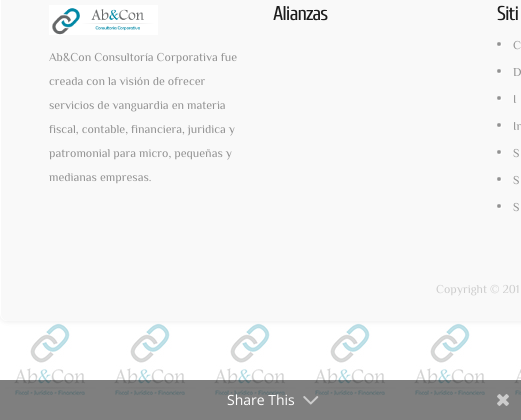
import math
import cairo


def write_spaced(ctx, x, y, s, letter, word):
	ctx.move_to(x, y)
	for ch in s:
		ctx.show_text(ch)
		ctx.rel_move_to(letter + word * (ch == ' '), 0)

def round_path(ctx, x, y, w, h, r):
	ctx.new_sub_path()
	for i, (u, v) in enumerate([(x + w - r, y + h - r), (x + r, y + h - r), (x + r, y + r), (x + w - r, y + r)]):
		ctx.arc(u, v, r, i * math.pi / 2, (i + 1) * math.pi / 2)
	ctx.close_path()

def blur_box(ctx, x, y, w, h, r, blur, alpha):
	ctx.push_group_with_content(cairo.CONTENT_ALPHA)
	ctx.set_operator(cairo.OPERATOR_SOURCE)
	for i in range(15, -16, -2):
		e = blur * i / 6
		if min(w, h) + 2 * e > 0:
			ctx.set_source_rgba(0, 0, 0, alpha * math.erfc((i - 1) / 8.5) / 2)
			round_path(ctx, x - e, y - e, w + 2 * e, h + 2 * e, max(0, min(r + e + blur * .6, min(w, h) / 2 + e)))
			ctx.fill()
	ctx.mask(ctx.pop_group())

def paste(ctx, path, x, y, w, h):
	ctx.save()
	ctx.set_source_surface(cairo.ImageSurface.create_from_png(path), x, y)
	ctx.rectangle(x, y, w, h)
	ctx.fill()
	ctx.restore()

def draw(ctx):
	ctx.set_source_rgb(1, 1, 1)
	ctx.paint()
	paste(ctx, 'media/1.png', 0, 314, 521, 106)
	ctx.set_source_rgb(0, 0, 0)
	blur_box(ctx, 0, -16, 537, 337, 7, 3, 0.1)
	ctx.set_source_rgb(1, 1, 1)
	round_path(ctx, 0, -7, 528, 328, 7)
	ctx.fill()
	ctx.set_source_rgb(0.976, 0.976, 0.976)
	ctx.new_path()
	ctx.move_to(1, -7)
	ctx.line_to(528, -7)
	ctx.line_to(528, 314)
	ctx.curve_to(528, 318, 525, 321, 521, 321)
	ctx.line_to(8, 321)
	ctx.curve_to(4, 321, 1, 318, 1, 314)
	ctx.close_path()
	ctx.fill()
	ctx.select_font_face('Cuprum')
	ctx.set_font_size(20)
	ctx.set_source_rgb(0.114, 0.114, 0.114)
	write_spaced(ctx, 273, 20, 'Alianzas', -1, 0)
	write_spaced(ctx, 497, 20, 'Siti', -1, 0)
	paste(ctx, 'media/2.png', 497, 42, 5, 5)
	ctx.select_font_face('Philosopher')
	ctx.set_font_size(12)
	ctx.set_source_rgb(0.573, 0.573, 0.573)
	ctx.move_to(513, 49)
	ctx.show_text('C')
	paste(ctx, 'media/2.png', 497, 69, 5, 5)
	ctx.move_to(513, 76)
	ctx.show_text('D')
	paste(ctx, 'media/2.png', 497, 96, 5, 5)
	ctx.move_to(513, 103)
	ctx.show_text('I')
	paste(ctx, 'media/2.png', 497, 123, 5, 5)
	ctx.move_to(513, 130)
	ctx.show_text('In')
	paste(ctx, 'media/2.png', 497, 150, 5, 5)
	ctx.move_to(513, 157)
	ctx.show_text('S')
	paste(ctx, 'media/2.png', 497, 177, 5, 5)
	ctx.move_to(513, 184)
	ctx.show_text('S')
	paste(ctx, 'media/2.png', 497, 204, 5, 5)
	ctx.move_to(513, 211)
	ctx.show_text('S')
	paste(ctx, 'media/3.png', 49, 5, 109, 30)
	for x, y, s in [
		(49, 61, 'Ab&Con Consultoría Corporativa fue'),
		(49, 85, 'creada con la visión de ofrecer'),
		(49, 109, 'servicios de vanguardia en materia'),
		(49, 133, 'fiscal, contable, financiera, juridica y'),
		(49, 157, 'patromonial para micro, pequeñas y'),
		(49, 181, 'medianas empresas.'),
	]:
		ctx.move_to(x, y)
		ctx.show_text(s)
	ctx.set_source_rgb(0.804, 0.804, 0.804)
	ctx.move_to(436, 293)
	ctx.show_text('Copyright © 201')
	ctx.set_source_rgba(0, 0, 0, 0.5)
	ctx.rectangle(0, 380, 521, 40)
	ctx.fill()
	ctx.select_font_face('Open Sans')
	ctx.set_font_size(14)
	ctx.set_source_rgb(1, 1, 1)
	ctx.move_to(227, 405)
	ctx.show_text('Share This')
	paste(ctx, 'media/4.png', 303, 396, 16, 9)
	paste(ctx, 'media/5.png', 497, 394, 12, 12)


surface = cairo.ImageSurface(cairo.FORMAT_RGB24, 521, 420)
ctx = cairo.Context(surface)
options = cairo.FontOptions()
options.set_hint_metrics(cairo.HINT_METRICS_OFF)
options.set_hint_style(cairo.HINT_STYLE_NONE)
ctx.set_font_options(options)
ctx.set_miter_limit(4)
draw(ctx)
surface.write_to_png('image.png')
